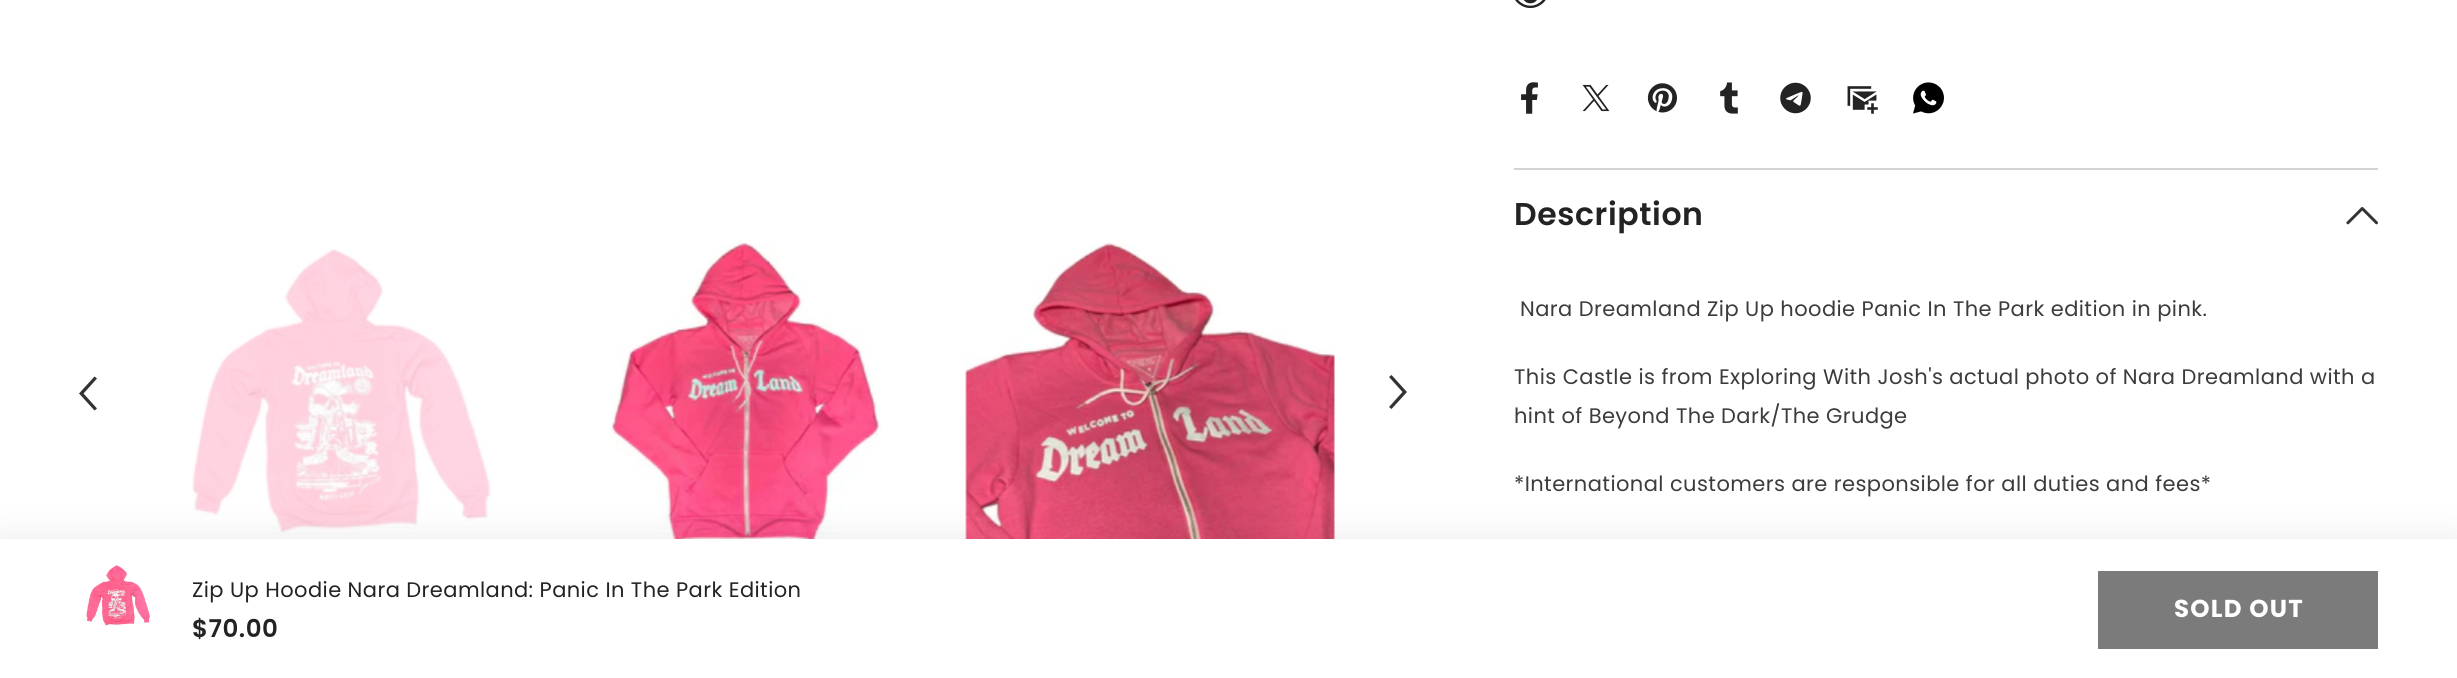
import math
import cairo


def write_spaced(ctx, x, y, s, letter, word):
	ctx.move_to(x, y)
	for ch in s:
		ctx.show_text(ch)
		ctx.rel_move_to(letter + word * (ch == ' '), 0)

def round_path(ctx, x, y, w, h, r):
	ctx.new_sub_path()
	for i, (u, v) in enumerate([(x + w - r, y + h - r), (x + r, y + h - r), (x + r, y + r), (x + w - r, y + r)]):
		ctx.arc(u, v, r, i * math.pi / 2, (i + 1) * math.pi / 2)
	ctx.close_path()

def blur_box(ctx, x, y, w, h, r, blur, alpha):
	ctx.push_group_with_content(cairo.CONTENT_ALPHA)
	ctx.set_operator(cairo.OPERATOR_SOURCE)
	for i in range(15, -16, -2):
		e = blur * i / 6
		if min(w, h) + 2 * e > 0:
			ctx.set_source_rgba(0, 0, 0, alpha * math.erfc((i - 1) / 8.5) / 2)
			round_path(ctx, x - e, y - e, w + 2 * e, h + 2 * e, max(0, min(r + e + blur * .6, min(w, h) / 2 + e)))
			ctx.fill()
	ctx.mask(ctx.pop_group())

def paste(ctx, path, x, y, w, h):
	ctx.save()
	ctx.set_source_surface(cairo.ImageSurface.create_from_png(path), x, y)
	ctx.rectangle(x, y, w, h)
	ctx.fill()
	ctx.restore()

def draw(ctx):
	ctx.set_source_rgb(1, 1, 1)
	ctx.paint()
	ctx.set_source_rgb(0.196, 0.196, 0.196)
	ctx.new_path()
	ctx.move_to(94.5, 410.5)
	ctx.line_to(97, 408.5)
	ctx.line_to(83.5, 393.5)
	ctx.line_to(97, 378.5)
	ctx.line_to(94.5, 376.5)
	ctx.line_to(79, 393.5)
	ctx.line_to(80, 394.5)
	ctx.close_path()
	ctx.fill()
	paste(ctx, 'media/1.png', 192, 249, 299, 284)
	paste(ctx, 'media/2.png', 610, 239, 271, 300)
	paste(ctx, 'media/3.png', 965, 242, 370, 297)
	ctx.new_path()
	ctx.move_to(1391.5, 375)
	ctx.line_to(1389, 377)
	ctx.line_to(1402.5, 392)
	ctx.line_to(1389, 407)
	ctx.line_to(1391.5, 409)
	ctx.line_to(1407, 392)
	ctx.line_to(1406, 391)
	ctx.close_path()
	ctx.fill()
	paste(ctx, 'media/4.png', 1515, 0, 31, 9)
	paste(ctx, 'media/5.png', 1521, 82, 17, 32)
	paste(ctx, 'media/6.png', 1582, 84, 28, 28)
	paste(ctx, 'media/7.png', 1647, 83, 30, 30)
	paste(ctx, 'media/8.png', 1720, 82, 18, 32)
	paste(ctx, 'media/9.png', 1780, 82, 31, 32)
	paste(ctx, 'media/10.png', 1847, 86, 31, 28)
	paste(ctx, 'media/11.png', 1913, 82, 31, 32)
	ctx.set_source_rgb(0.827, 0.827, 0.827)
	ctx.rectangle(1514, 168, 864, 2)
	ctx.fill()
	ctx.select_font_face('Poppins SemiBold')
	ctx.set_font_size(31.5)
	ctx.set_source_rgb(0.137, 0.137, 0.137)
	write_spaced(ctx, 1514, 225, 'Description', 0.6, 0)
	paste(ctx, 'media/12.png', 2346, 207, 32, 18)
	ctx.select_font_face('Poppins')
	ctx.set_font_size(21)
	ctx.set_source_rgb(0.235, 0.235, 0.235)
	for x, y, s in [
		(1520, 316, 'Nara Dreamland Zip Up hoodie Panic In The Park edition in pink.'),
		(1514, 384, 'This Castle is from Exploring With Josh\'s actual photo of Nara Dreamland with a'),
		(1514, 423, 'hint of Beyond The Dark/The Grudge'),
		(1514, 491, '*International customers are responsible for all duties and fees*'),
	]:
		write_spaced(ctx, x, y, s, 0.42, 0)
	ctx.set_source_rgb(0, 0, 0)
	blur_box(ctx, 0, 541, 2457, 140, 0, 17.5, 0.1)
	ctx.set_source_rgb(1, 1, 1)
	ctx.rectangle(0, 539, 2457, 139)
	ctx.fill()
	paste(ctx, 'media/13.png', 86, 565, 64, 61)
	ctx.save()
	ctx.rectangle(193, 571, 1048, 38)
	ctx.clip()
	ctx.set_source_rgb(0.137, 0.137, 0.137)
	write_spaced(ctx, 192, 597, 'Zip Up Hoodie Nara Dreamland: Panic In The Park Edition', 0.42, 0)
	ctx.restore()
	ctx.select_font_face('Poppins SemiBold')
	ctx.set_font_size(24.5)
	ctx.set_source_rgb(0.137, 0.137, 0.137)
	write_spaced(ctx, 192, 637, '$70.00', 0.5, 0)
	ctx.set_source_rgb(0.482, 0.482, 0.482)
	ctx.rectangle(2098, 571, 280, 78)
	ctx.fill()
	ctx.select_font_face('Poppins', cairo.FONT_SLANT_NORMAL, cairo.FONT_WEIGHT_BOLD)
	ctx.set_source_rgb(1, 1, 1)
	write_spaced(ctx, 2174, 617, 'SOLD OUT', 1.25, 0)


surface = cairo.ImageSurface(cairo.FORMAT_RGB24, 2457, 678)
ctx = cairo.Context(surface)
options = cairo.FontOptions()
options.set_hint_metrics(cairo.HINT_METRICS_OFF)
options.set_hint_style(cairo.HINT_STYLE_NONE)
ctx.set_font_options(options)
ctx.set_miter_limit(4)
draw(ctx)
surface.write_to_png('image.png')
